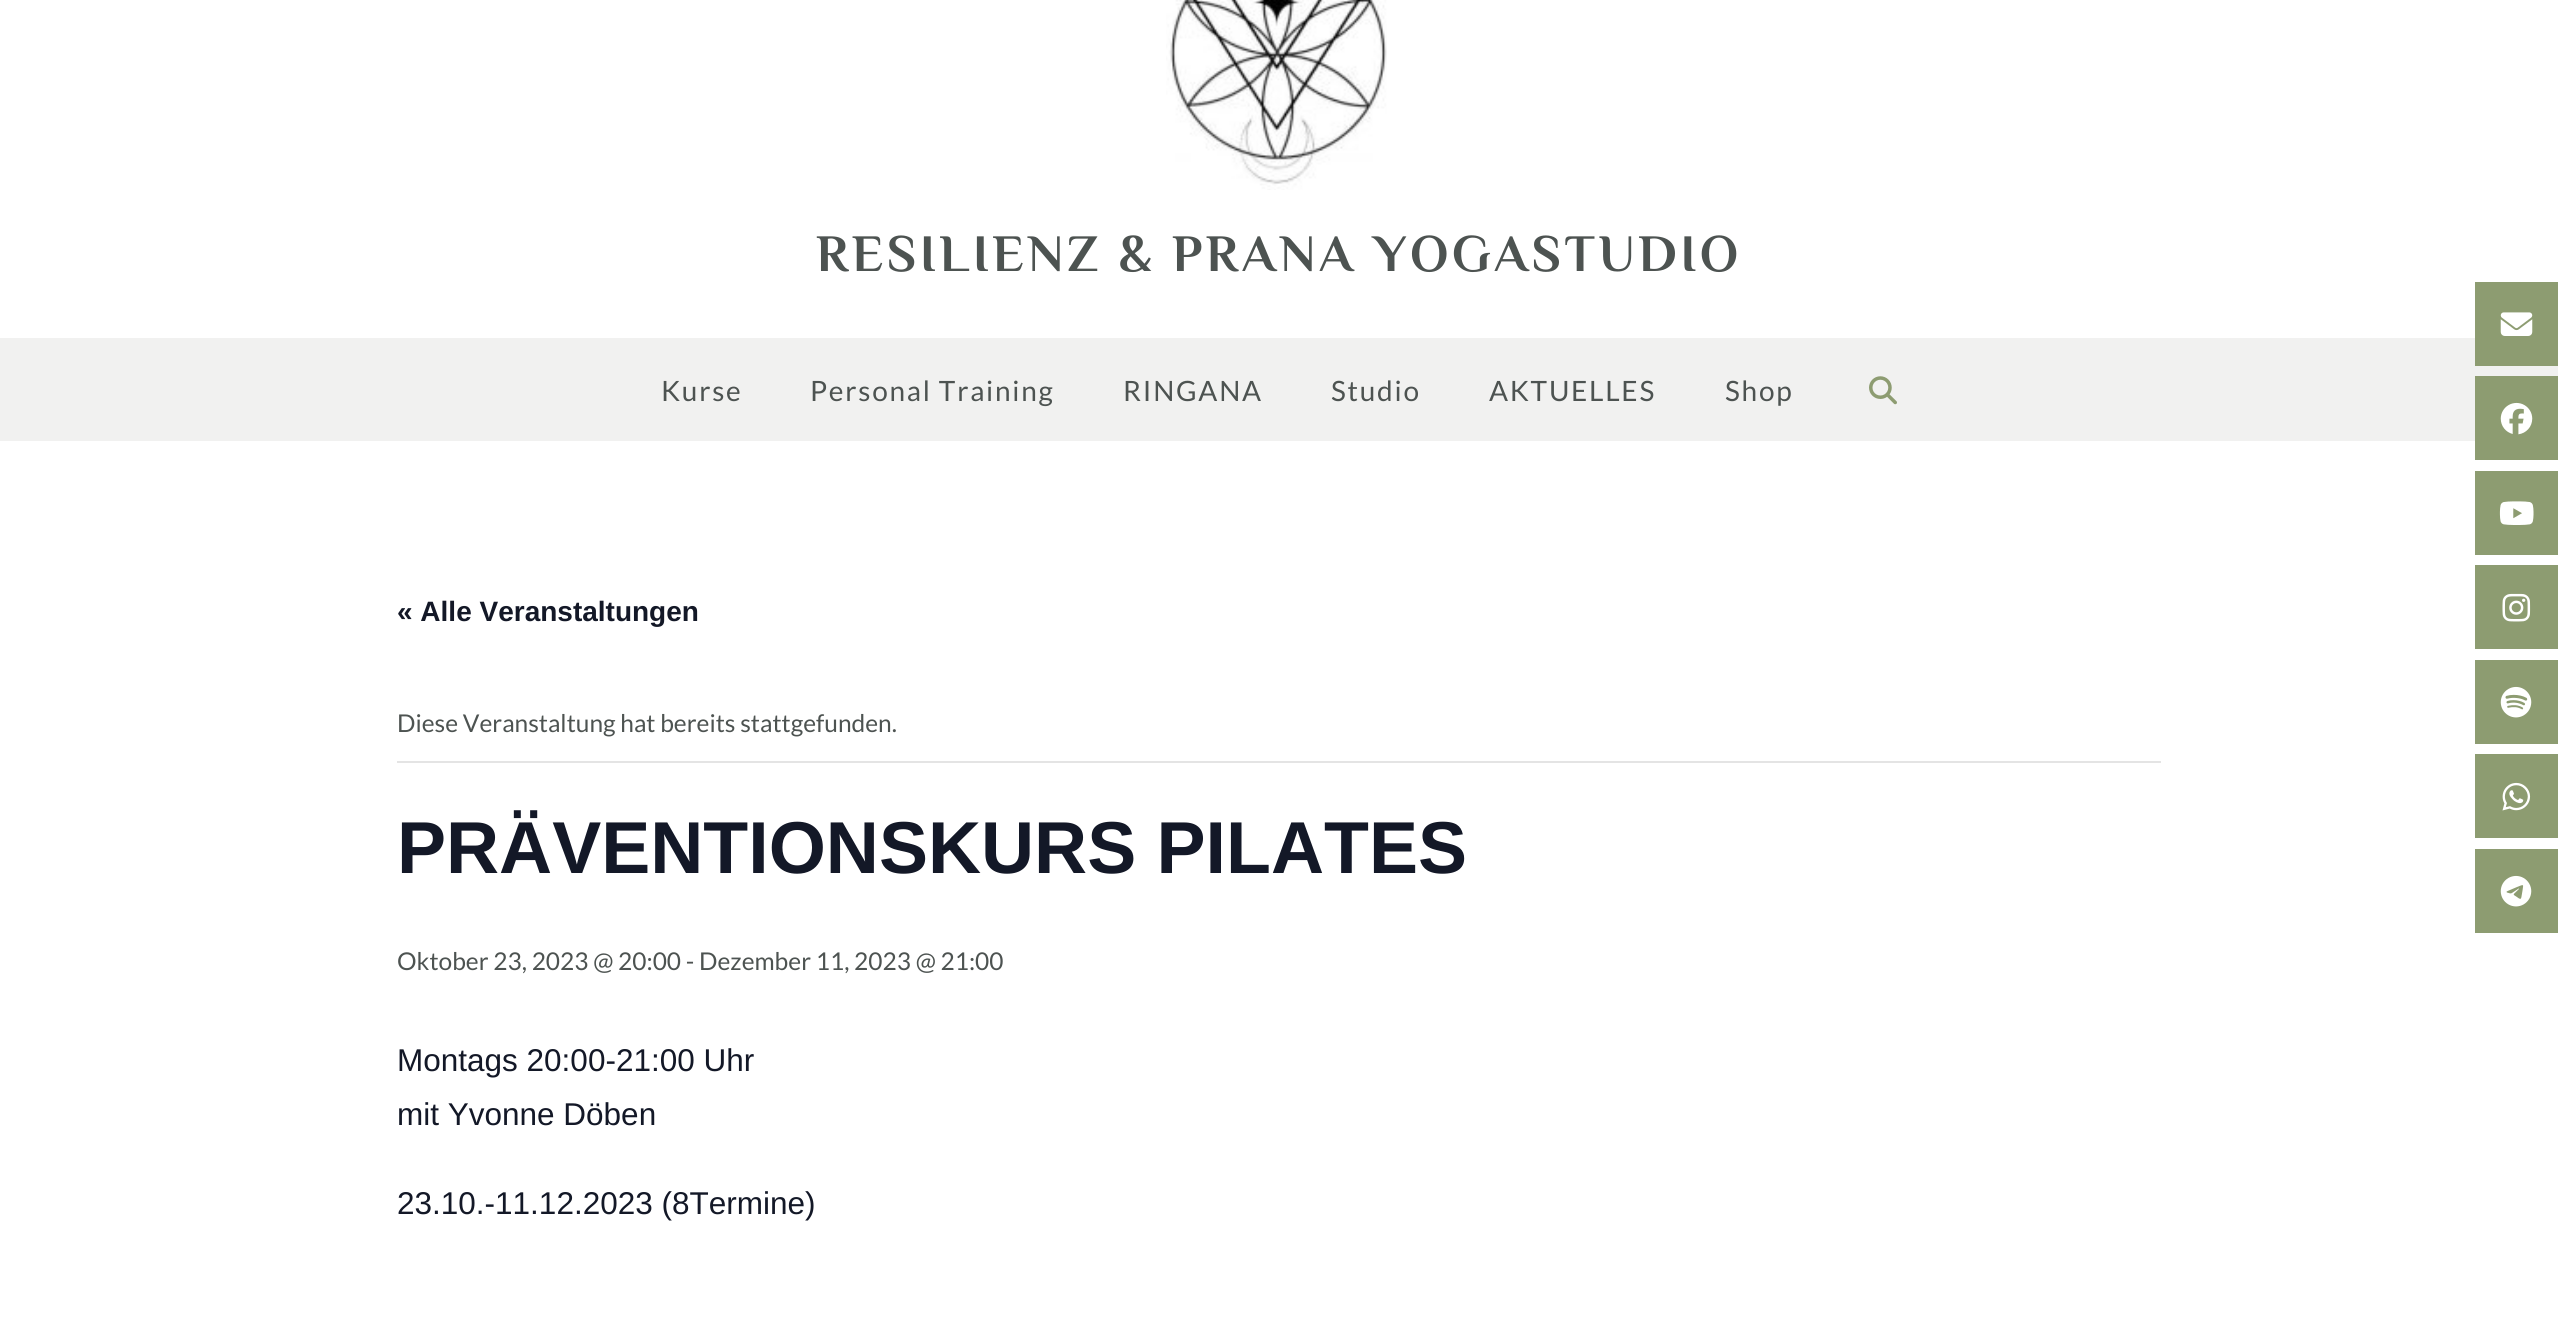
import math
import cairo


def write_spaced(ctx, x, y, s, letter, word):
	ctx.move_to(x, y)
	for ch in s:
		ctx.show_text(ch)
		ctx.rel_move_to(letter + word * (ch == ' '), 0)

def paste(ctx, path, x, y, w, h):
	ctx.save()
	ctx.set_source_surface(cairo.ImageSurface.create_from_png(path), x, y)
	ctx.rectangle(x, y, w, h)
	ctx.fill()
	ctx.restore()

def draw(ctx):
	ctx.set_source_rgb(1, 1, 1)
	ctx.paint()
	paste(ctx, 'media/1.png', 1166, 0, 221, 190)
	ctx.select_font_face('Philosopher', cairo.FONT_SLANT_NORMAL, cairo.FONT_WEIGHT_BOLD)
	ctx.set_font_size(52.5)
	ctx.set_source_rgb(0.302, 0.325, 0.318)
	write_spaced(ctx, 816, 271, 'RESILIENZ & PRANA YOGASTUDIO', 3.5, 0)
	ctx.set_source_rgb(0.945, 0.945, 0.941)
	ctx.rectangle(0, 338, 2558, 103)
	ctx.fill()
	ctx.select_font_face('Lato')
	ctx.set_font_size(28)
	ctx.set_source_rgb(0.302, 0.325, 0.318)
	for x, y, s in [
		(661, 401, 'Kurse'),
		(810, 401, 'Personal Training'),
		(1123, 401, 'RINGANA'),
		(1331, 401, 'Studio'),
		(1489, 401, 'AKTUELLES'),
		(1725, 401, 'Shop'),
	]:
		write_spaced(ctx, x, y, s, 1.75, 0)
	paste(ctx, 'media/2.png', 1869, 376, 28, 29)
	ctx.set_source_rgb(0.553, 0.612, 0.443)
	ctx.rectangle(2475, 282, 83, 84)
	ctx.fill()
	paste(ctx, 'media/3.png', 2500, 312, 33, 24)
	ctx.rectangle(2475, 376, 83, 84)
	ctx.fill()
	paste(ctx, 'media/4.png', 2500, 402, 33, 33)
	ctx.rectangle(2475, 471, 83, 84)
	ctx.fill()
	paste(ctx, 'media/5.png', 2499, 501, 35, 24)
	ctx.rectangle(2475, 565, 83, 84)
	ctx.fill()
	paste(ctx, 'media/6.png', 2502, 593, 29, 29)
	ctx.rectangle(2475, 660, 83, 84)
	ctx.fill()
	paste(ctx, 'media/7.png', 2500, 686, 32, 32)
	ctx.rectangle(2475, 754, 83, 84)
	ctx.fill()
	paste(ctx, 'media/8.png', 2502, 782, 29, 29)
	ctx.rectangle(2475, 849, 83, 84)
	ctx.fill()
	paste(ctx, 'media/9.png', 2500, 875, 32, 32)
	ctx.select_font_face('Liberation Sans', cairo.FONT_SLANT_NORMAL, cairo.FONT_WEIGHT_BOLD)
	ctx.set_source_rgb(0.078, 0.094, 0.153)
	ctx.move_to(397, 621)
	ctx.show_text('« Alle Veranstaltungen')
	ctx.set_source_rgb(0.894, 0.894, 0.894)
	ctx.rectangle(397, 761, 1764, 2)
	ctx.fill()
	ctx.select_font_face('Lato')
	ctx.set_font_size(24.5)
	ctx.set_source_rgb(0.302, 0.325, 0.318)
	ctx.move_to(397, 732)
	ctx.show_text('Diese Veranstaltung hat bereits stattgefunden.')
	ctx.select_font_face('Liberation Sans', cairo.FONT_SLANT_NORMAL, cairo.FONT_WEIGHT_BOLD)
	ctx.set_font_size(73.5)
	ctx.set_source_rgb(0.078, 0.094, 0.153)
	ctx.move_to(397, 873)
	ctx.show_text('PRÄVENTIONSKURS PILATES')
	ctx.select_font_face('Lato')
	ctx.set_font_size(24.5)
	ctx.set_source_rgb(0.302, 0.325, 0.318)
	ctx.move_to(397, 970)
	ctx.show_text('Oktober 23, 2023 @ 20:00 - Dezember 11, 2023 @ 21:00')
	ctx.select_font_face('Liberation Sans')
	ctx.set_font_size(31.5)
	ctx.set_source_rgb(0.078, 0.094, 0.153)
	for x, y, s in [
		(397, 1071, 'Montags 20:00-21:00 Uhr'),
		(397, 1125, 'mit Yvonne Döben'),
		(397, 1214, '23.10.-11.12.2023 (8Termine)'),
	]:
		ctx.move_to(x, y)
		ctx.show_text(s)


surface = cairo.ImageSurface(cairo.FORMAT_RGB24, 2558, 1327)
ctx = cairo.Context(surface)
options = cairo.FontOptions()
options.set_hint_metrics(cairo.HINT_METRICS_OFF)
options.set_hint_style(cairo.HINT_STYLE_NONE)
ctx.set_font_options(options)
ctx.set_miter_limit(4)
draw(ctx)
surface.write_to_png('image.png')
